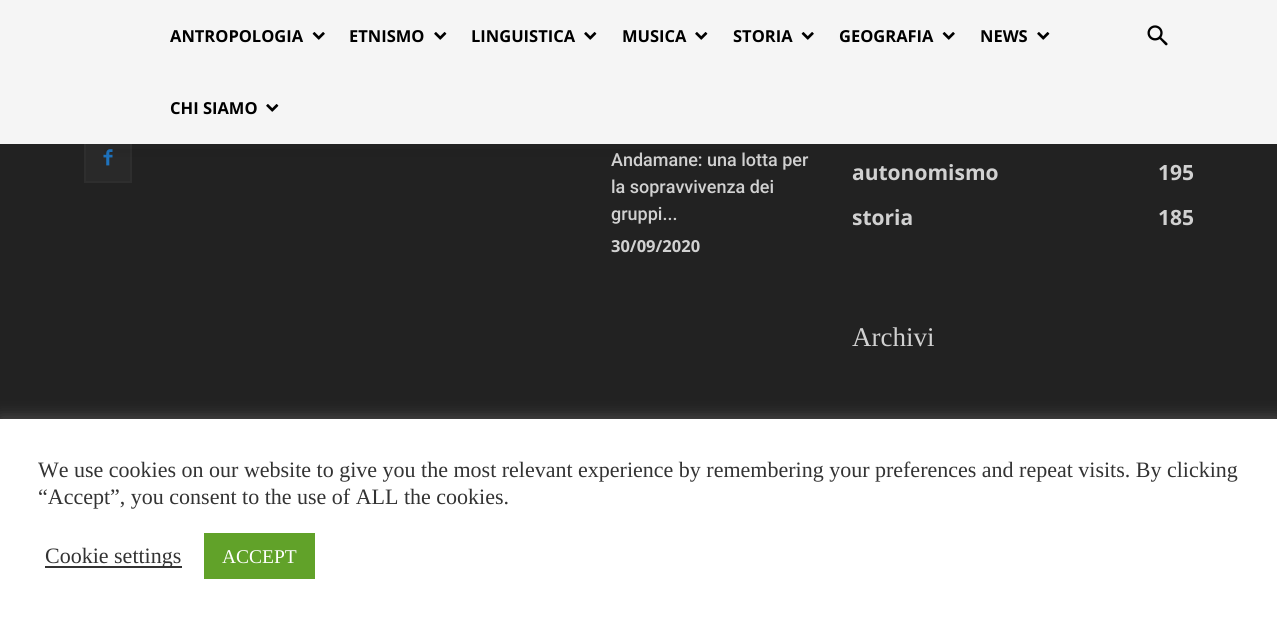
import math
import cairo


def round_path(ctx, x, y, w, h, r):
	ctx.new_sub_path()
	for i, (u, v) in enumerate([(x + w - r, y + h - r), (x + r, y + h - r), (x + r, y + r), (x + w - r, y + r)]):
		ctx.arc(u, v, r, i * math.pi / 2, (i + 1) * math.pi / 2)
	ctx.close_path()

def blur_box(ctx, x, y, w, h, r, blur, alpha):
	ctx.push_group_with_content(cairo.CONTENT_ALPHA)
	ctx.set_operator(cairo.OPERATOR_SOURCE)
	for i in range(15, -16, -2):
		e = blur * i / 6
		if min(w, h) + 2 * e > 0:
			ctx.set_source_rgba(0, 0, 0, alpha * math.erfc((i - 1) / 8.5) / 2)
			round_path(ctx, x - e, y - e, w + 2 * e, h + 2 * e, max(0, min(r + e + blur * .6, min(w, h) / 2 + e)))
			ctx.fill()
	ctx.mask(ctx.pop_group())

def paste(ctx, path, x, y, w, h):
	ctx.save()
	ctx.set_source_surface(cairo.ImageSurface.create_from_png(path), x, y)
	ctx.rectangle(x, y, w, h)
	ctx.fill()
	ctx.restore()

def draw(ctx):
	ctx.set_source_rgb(0.133, 0.133, 0.133)
	ctx.paint()
	ctx.set_source_rgb(0.161, 0.161, 0.161)
	ctx.rectangle(86, 137, 44, 44)
	ctx.fill()
	paste(ctx, 'media/6.png', 103, 149, 10, 17)
	ctx.rectangle(85, 136, 46, 46)
	ctx.set_source_rgb(0.18, 0.18, 0.18)
	ctx.stroke()
	ctx.set_source_rgba(1, 1, 1, 0.95)
	ctx.rectangle(0, 0, 1277, 144)
	ctx.fill()
	ctx.select_font_face('Open Sans', cairo.FONT_SLANT_NORMAL, cairo.FONT_WEIGHT_BOLD)
	ctx.set_font_size(16.5)
	ctx.set_source_rgb(0, 0, 0)
	ctx.move_to(170, 42)
	ctx.show_text('ANTROPOLOGIA')
	paste(ctx, 'media/1.png', 312, 32, 13, 8)
	ctx.move_to(349, 42)
	ctx.show_text('ETNISMO')
	paste(ctx, 'media/2.png', 434, 32, 13, 8)
	ctx.move_to(471, 42)
	ctx.show_text('LINGUISTICA')
	paste(ctx, 'media/2.png', 584, 32, 13, 8)
	ctx.move_to(622, 42)
	ctx.show_text('MUSICA')
	paste(ctx, 'media/2.png', 695, 32, 13, 8)
	ctx.move_to(733, 42)
	ctx.show_text('STORIA')
	paste(ctx, 'media/1.png', 801, 32, 13, 8)
	ctx.move_to(839, 42)
	ctx.show_text('GEOGRAFIA')
	paste(ctx, 'media/3.png', 942, 32, 13, 8)
	ctx.move_to(980, 42)
	ctx.show_text('NEWS')
	paste(ctx, 'media/2.png', 1037, 32, 13, 8)
	ctx.move_to(170, 114)
	ctx.show_text('CHI SIAMO')
	paste(ctx, 'media/2.png', 266, 104, 13, 8)
	paste(ctx, 'media/4.png', 1147, 25, 21, 21)
	ctx.select_font_face('Roboto Medium')
	ctx.set_font_size(18)
	ctx.set_source_rgb(0.82, 0.82, 0.82)
	ctx.move_to(611, 166)
	ctx.show_text('Andamane: una lotta per')
	paste(ctx, 'media/5.png', 104, 149, 661, 8)
	ctx.move_to(611, 193)
	ctx.show_text('la sopravvivenza dei')
	ctx.move_to(611, 220)
	ctx.show_text('gruppi...')
	ctx.select_font_face('Open Sans', cairo.FONT_SLANT_NORMAL, cairo.FONT_WEIGHT_BOLD)
	ctx.set_font_size(16.5)
	ctx.move_to(611, 252)
	ctx.show_text('30/09/2020')
	ctx.set_font_size(21)
	for x, y, s in [
		(852, 180, 'autonomismo'),
		(1158, 180, '195'),
		(852, 225, 'storia'),
		(1158, 225, '185'),
	]:
		ctx.move_to(x, y)
		ctx.show_text(s)
	ctx.select_font_face('Liberation Serif')
	ctx.set_font_size(27)
	ctx.move_to(852, 346)
	ctx.show_text('Archivi')
	ctx.set_source_rgb(0.675, 0.671, 0.671)
	blur_box(ctx, 0, 417, 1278, 206, 0, 7.5, 0.3)
	ctx.set_source_rgb(1, 1, 1)
	ctx.rectangle(0, 419, 1277, 205)
	ctx.fill()
	ctx.set_font_size(22)
	ctx.set_source_rgb(0.2, 0.2, 0.2)
	ctx.move_to(38, 477)
	ctx.show_text('We use cookies on our website to give you the most relevant experience by remembering your preferences and repeat visits. By clicking')
	ctx.move_to(38, 504)
	ctx.show_text('“Accept”, you consent to the use of ALL the cookies.')
	ctx.rectangle(45, 566, 137, 2)
	ctx.fill()
	ctx.move_to(45, 563)
	ctx.show_text('Cookie settings')
	ctx.set_source_rgb(0.38, 0.635, 0.161)
	ctx.rectangle(204, 533, 111, 46)
	ctx.fill()
	ctx.set_font_size(19.5)
	ctx.set_source_rgb(1, 1, 1)
	ctx.move_to(222, 563)
	ctx.show_text('ACCEPT')


surface = cairo.ImageSurface(cairo.FORMAT_RGB24, 1277, 624)
ctx = cairo.Context(surface)
options = cairo.FontOptions()
options.set_hint_metrics(cairo.HINT_METRICS_OFF)
options.set_hint_style(cairo.HINT_STYLE_NONE)
ctx.set_font_options(options)
ctx.set_miter_limit(4)
draw(ctx)
surface.write_to_png('image.png')
